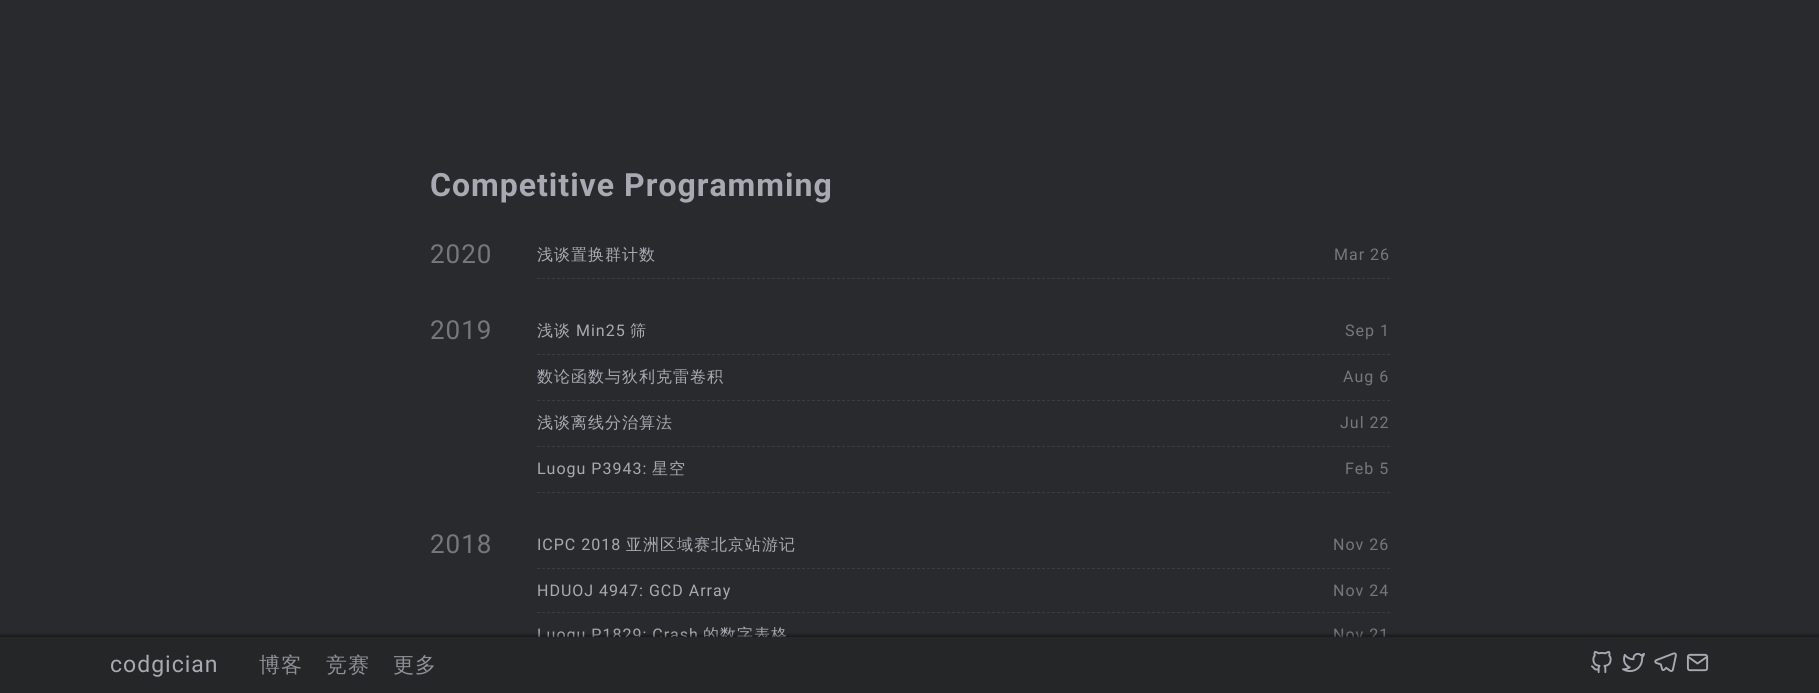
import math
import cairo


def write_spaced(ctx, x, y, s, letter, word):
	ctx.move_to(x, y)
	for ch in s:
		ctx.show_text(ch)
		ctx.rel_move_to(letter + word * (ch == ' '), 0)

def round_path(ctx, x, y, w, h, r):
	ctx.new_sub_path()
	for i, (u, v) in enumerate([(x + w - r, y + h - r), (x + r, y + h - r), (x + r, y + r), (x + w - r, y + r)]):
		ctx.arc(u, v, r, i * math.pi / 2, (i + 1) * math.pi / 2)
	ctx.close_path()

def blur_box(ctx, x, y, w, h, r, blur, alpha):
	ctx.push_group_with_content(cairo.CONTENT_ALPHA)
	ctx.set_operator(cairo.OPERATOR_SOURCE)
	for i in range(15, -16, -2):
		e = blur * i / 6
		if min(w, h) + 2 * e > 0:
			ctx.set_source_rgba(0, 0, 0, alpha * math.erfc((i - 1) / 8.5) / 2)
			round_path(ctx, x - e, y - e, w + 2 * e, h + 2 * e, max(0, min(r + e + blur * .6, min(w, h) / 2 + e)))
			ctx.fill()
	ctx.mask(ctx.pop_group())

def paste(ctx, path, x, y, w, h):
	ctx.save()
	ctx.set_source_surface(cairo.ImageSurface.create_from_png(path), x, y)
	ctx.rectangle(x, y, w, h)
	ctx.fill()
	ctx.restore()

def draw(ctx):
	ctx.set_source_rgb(0.161, 0.165, 0.176)
	ctx.paint()
	ctx.select_font_face('Roboto', cairo.FONT_SLANT_NORMAL, cairo.FONT_WEIGHT_BOLD)
	ctx.set_font_size(32)
	ctx.set_source_rgb(0.663, 0.663, 0.702)
	write_spaced(ctx, 430, 196, 'Competitive Programming', 1, 0)
	ctx.select_font_face('Roboto')
	ctx.set_font_size(26)
	ctx.set_source_rgb(0.463, 0.463, 0.49)
	write_spaced(ctx, 430, 263, '2020', 1, 0)
	ctx.new_path()
	ctx.move_to(537, 278.5)
	ctx.line_to(1390, 278.5)
	ctx.set_source_rgb(0.231, 0.239, 0.259)
	ctx.set_line_width(1)
	ctx.set_dash([3, 2])
	ctx.stroke()
	ctx.select_font_face('WenQuanYi Zen Hei Medium')
	ctx.set_font_size(16)
	ctx.set_source_rgb(0.663, 0.663, 0.702)
	write_spaced(ctx, 537, 260, '浅谈置换群计数', 1, 0)
	ctx.select_font_face('Roboto')
	ctx.set_source_rgb(0.463, 0.463, 0.49)
	write_spaced(ctx, 1334, 260, 'Mar 26', 1, 0)
	ctx.set_font_size(26)
	write_spaced(ctx, 430, 339, '2019', 1, 0)
	ctx.new_path()
	ctx.move_to(537, 354.5)
	ctx.line_to(1390, 354.5)
	ctx.set_source_rgb(0.231, 0.239, 0.259)
	ctx.stroke()
	ctx.select_font_face('WenQuanYi Zen Hei Medium')
	ctx.set_font_size(16)
	ctx.set_source_rgb(0.663, 0.663, 0.702)
	write_spaced(ctx, 537, 336, '浅谈', 1, 0)
	ctx.select_font_face('Roboto')
	write_spaced(ctx, 576, 336, 'Min25', 1, 0)
	ctx.select_font_face('WenQuanYi Zen Hei Medium')
	write_spaced(ctx, 630, 336, '筛', 1, 0)
	ctx.select_font_face('Roboto')
	ctx.set_source_rgb(0.463, 0.463, 0.49)
	write_spaced(ctx, 1345, 336, 'Sep 1', 1, 0)
	ctx.new_path()
	ctx.move_to(537, 400.5)
	ctx.line_to(1390, 400.5)
	ctx.set_source_rgb(0.231, 0.239, 0.259)
	ctx.stroke()
	ctx.select_font_face('WenQuanYi Zen Hei Medium')
	ctx.set_source_rgb(0.663, 0.663, 0.702)
	write_spaced(ctx, 537, 382, '数论函数与狄利克雷卷积', 1, 0)
	ctx.select_font_face('Roboto')
	ctx.set_source_rgb(0.463, 0.463, 0.49)
	write_spaced(ctx, 1343, 382, 'Aug 6', 1, 0)
	ctx.new_path()
	ctx.move_to(537, 446.5)
	ctx.line_to(1390, 446.5)
	ctx.set_source_rgb(0.231, 0.239, 0.259)
	ctx.stroke()
	ctx.select_font_face('WenQuanYi Zen Hei Medium')
	ctx.set_source_rgb(0.663, 0.663, 0.702)
	write_spaced(ctx, 537, 428, '浅谈离线分治算法', 1, 0)
	ctx.select_font_face('Roboto')
	ctx.set_source_rgb(0.463, 0.463, 0.49)
	write_spaced(ctx, 1340, 428, 'Jul 22', 1, 0)
	ctx.new_path()
	ctx.move_to(537, 492.5)
	ctx.line_to(1390, 492.5)
	ctx.set_source_rgb(0.231, 0.239, 0.259)
	ctx.stroke()
	ctx.set_source_rgb(0.663, 0.663, 0.702)
	write_spaced(ctx, 537, 474, 'Luogu P3943:', 1, 0)
	ctx.select_font_face('WenQuanYi Zen Hei Medium')
	write_spaced(ctx, 652, 474, '星空', 1, 0)
	ctx.select_font_face('Roboto')
	ctx.set_source_rgb(0.463, 0.463, 0.49)
	write_spaced(ctx, 1345, 474, 'Feb 5', 1, 0)
	ctx.set_font_size(26)
	write_spaced(ctx, 430, 553, '2018', 1, 0)
	ctx.new_path()
	ctx.move_to(537, 568.5)
	ctx.line_to(1390, 568.5)
	ctx.set_source_rgb(0.231, 0.239, 0.259)
	ctx.stroke()
	ctx.set_font_size(16)
	ctx.set_source_rgb(0.663, 0.663, 0.702)
	write_spaced(ctx, 537, 550, 'ICPC 2018', 1, 0)
	ctx.select_font_face('WenQuanYi Zen Hei Medium')
	write_spaced(ctx, 626, 550, '亚洲区域赛北京站游记', 1, 0)
	ctx.select_font_face('Roboto')
	ctx.set_source_rgb(0.463, 0.463, 0.49)
	write_spaced(ctx, 1333, 550, 'Nov 26', 1, 0)
	ctx.new_path()
	ctx.move_to(537, 612.5)
	ctx.line_to(1390, 612.5)
	ctx.set_source_rgb(0.231, 0.239, 0.259)
	ctx.stroke()
	ctx.set_source_rgb(0.663, 0.663, 0.702)
	write_spaced(ctx, 537, 596, 'HDUOJ 4947: GCD Array', 1, 0)
	ctx.set_source_rgb(0.463, 0.463, 0.49)
	write_spaced(ctx, 1333, 596, 'Nov 24', 1, 0)
	ctx.set_source_rgb(0.663, 0.663, 0.702)
	write_spaced(ctx, 537, 640, 'Luogu P1829: Crash', 1, 0)
	ctx.select_font_face('WenQuanYi Zen Hei Medium')
	write_spaced(ctx, 703, 640, '的数字表格', 1, 0)
	ctx.select_font_face('Roboto')
	ctx.set_source_rgb(0.463, 0.463, 0.49)
	write_spaced(ctx, 1333, 640, 'Nov 21', 1, 0)
	ctx.set_source_rgb(0, 0, 0)
	blur_box(ctx, -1, 635, 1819, 56, 0, 1.5, 0.45)
	ctx.set_source_rgb(0.145, 0.149, 0.153)
	ctx.rectangle(0, 637, 1819, 56)
	ctx.fill()
	ctx.set_font_size(23)
	ctx.set_source_rgb(0.663, 0.663, 0.702)
	write_spaced(ctx, 110, 672, 'codgician', 1, 0)
	ctx.select_font_face('WenQuanYi Zen Hei Medium')
	ctx.set_font_size(21)
	ctx.set_source_rgb(0.561, 0.561, 0.592)
	for x, y, s in [
		(259, 672, '博客'),
		(326, 672, '竞赛'),
		(393, 672, '更多'),
	]:
		write_spaced(ctx, x, y, s, 1, 0)
	paste(ctx, 'media/1.png', 1591, 651, 21, 23)
	paste(ctx, 'media/2.png', 1622, 652, 23, 20)
	paste(ctx, 'media/3.png', 1654, 652, 23, 20)
	paste(ctx, 'media/4.png', 1686, 653, 23, 19)


surface = cairo.ImageSurface(cairo.FORMAT_RGB24, 1819, 693)
ctx = cairo.Context(surface)
options = cairo.FontOptions()
options.set_hint_metrics(cairo.HINT_METRICS_OFF)
options.set_hint_style(cairo.HINT_STYLE_NONE)
ctx.set_font_options(options)
ctx.set_miter_limit(4)
draw(ctx)
surface.write_to_png('image.png')
